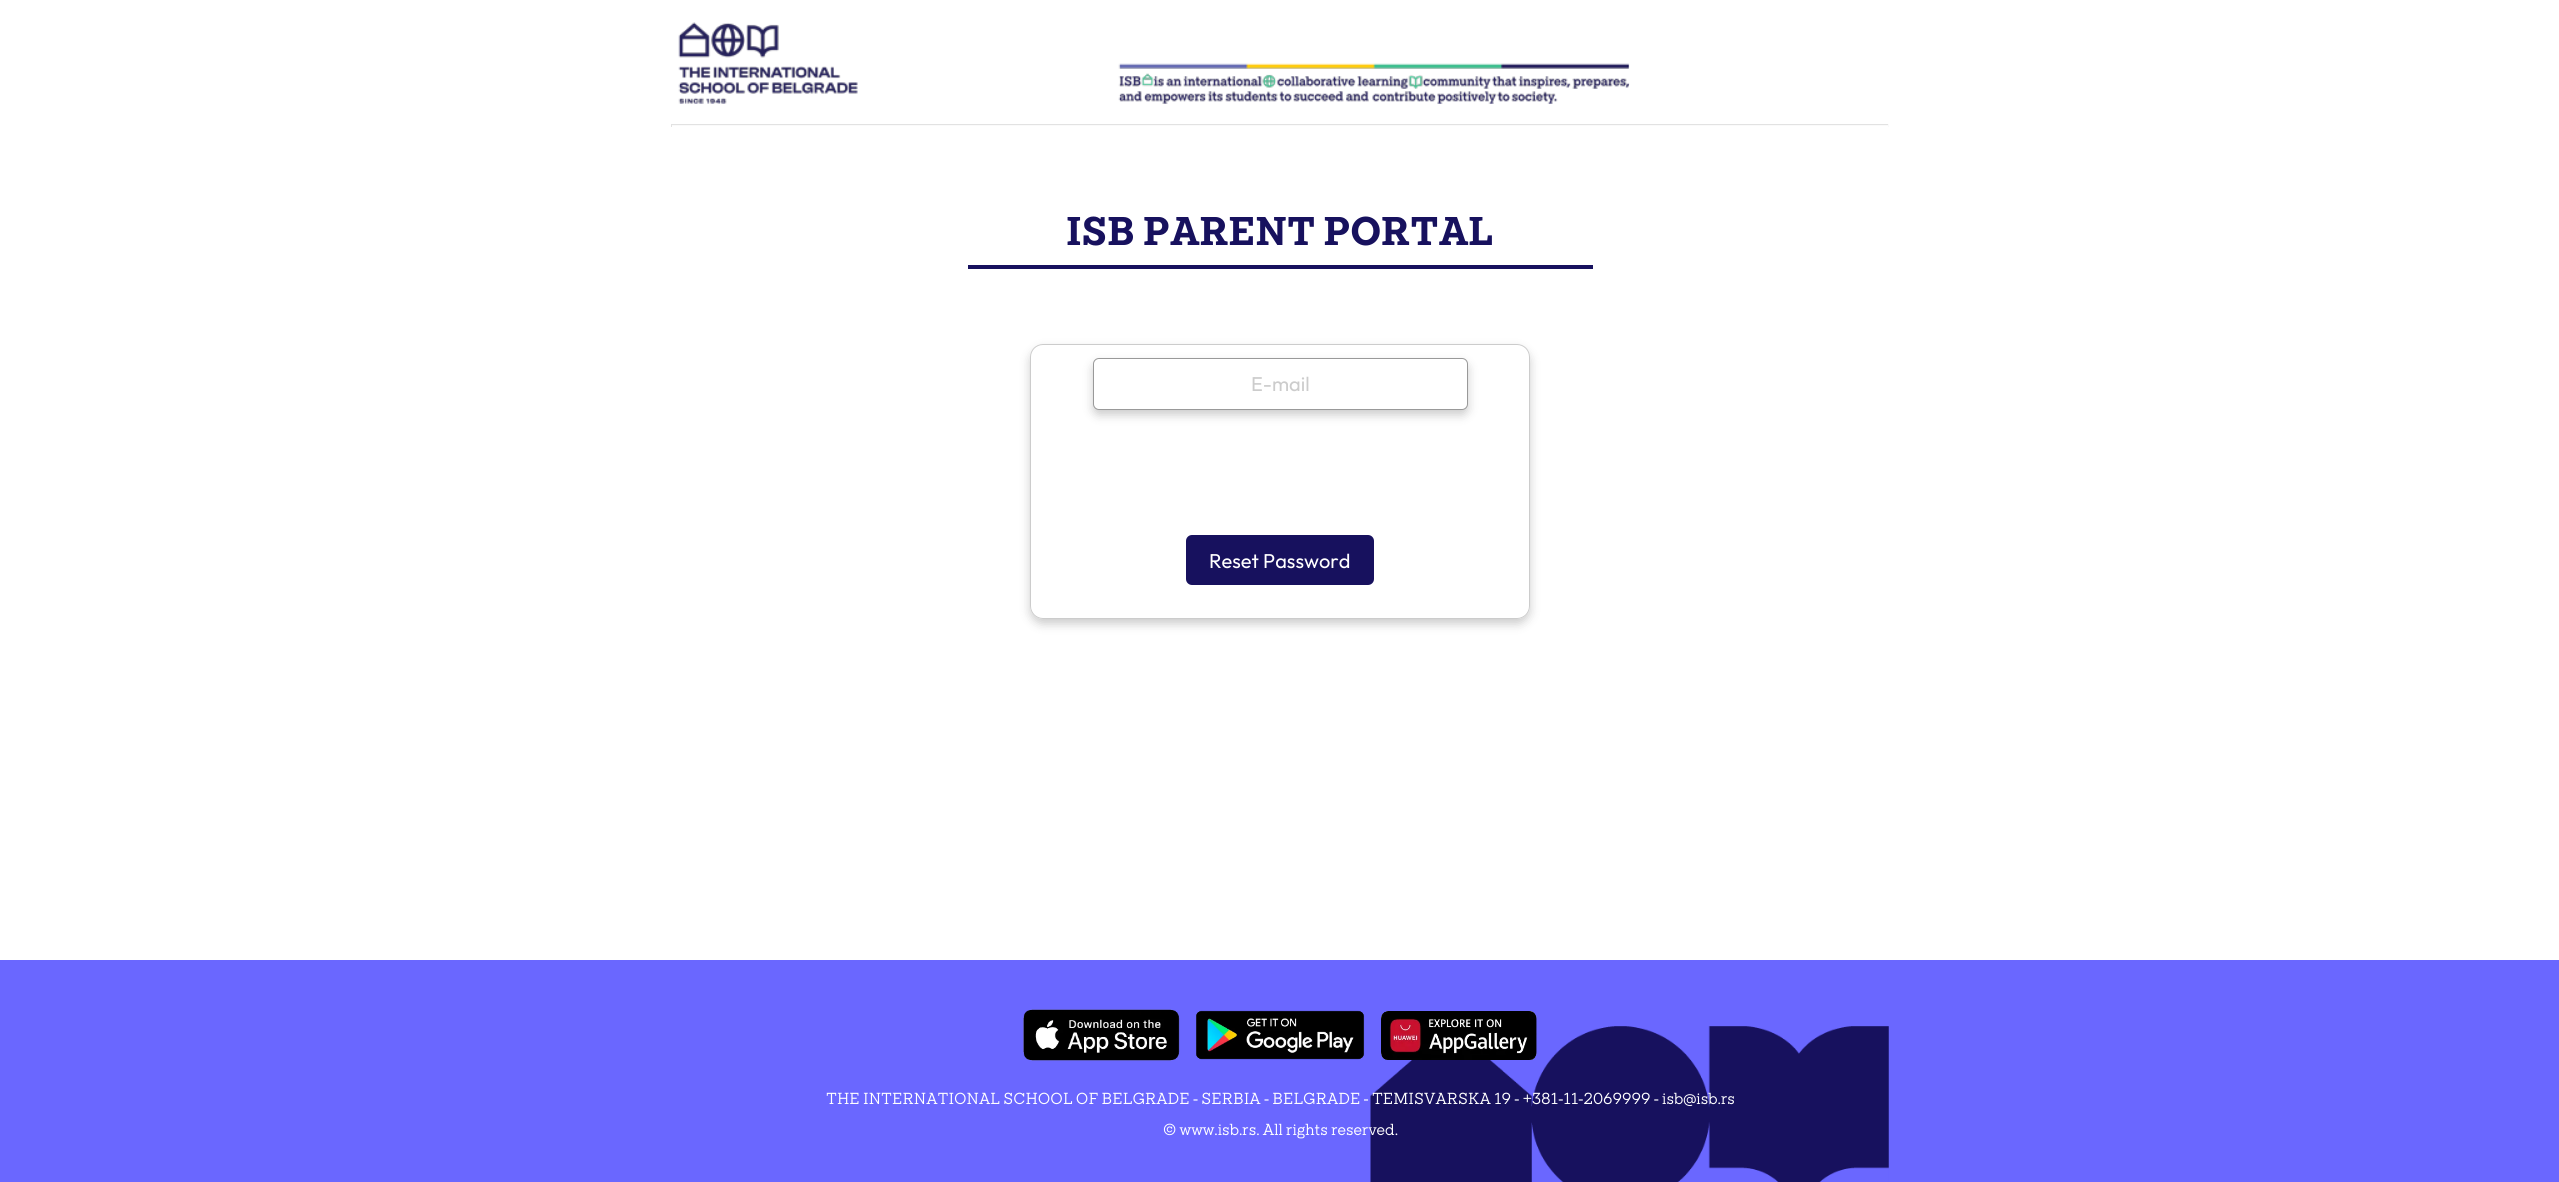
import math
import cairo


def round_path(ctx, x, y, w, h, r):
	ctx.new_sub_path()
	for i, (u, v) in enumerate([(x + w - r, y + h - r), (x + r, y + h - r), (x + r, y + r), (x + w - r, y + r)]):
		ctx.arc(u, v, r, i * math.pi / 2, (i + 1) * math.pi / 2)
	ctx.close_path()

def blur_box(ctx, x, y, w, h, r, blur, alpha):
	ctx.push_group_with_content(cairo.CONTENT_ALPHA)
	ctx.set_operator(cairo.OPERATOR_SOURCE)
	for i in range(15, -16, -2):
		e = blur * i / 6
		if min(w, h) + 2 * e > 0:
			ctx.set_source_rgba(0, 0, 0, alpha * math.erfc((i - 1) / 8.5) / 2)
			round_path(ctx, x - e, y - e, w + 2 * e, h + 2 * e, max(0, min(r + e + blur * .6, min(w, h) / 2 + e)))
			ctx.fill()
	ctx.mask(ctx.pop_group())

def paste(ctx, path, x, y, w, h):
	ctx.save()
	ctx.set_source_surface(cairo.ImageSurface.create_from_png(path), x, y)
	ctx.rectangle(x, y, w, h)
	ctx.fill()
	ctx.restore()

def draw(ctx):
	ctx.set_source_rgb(1, 1, 1)
	ctx.paint()
	paste(ctx, 'media/1.png', 678, 22, 952, 82)
	ctx.set_source_rgb(0.886, 0.886, 0.886)
	ctx.rectangle(671, 124, 1218, 1)
	ctx.fill()
	ctx.set_source_rgb(0.98, 0.98, 0.98)
	ctx.rectangle(1888, 124, 1, 3)
	ctx.rectangle(671, 125, 1218, 1)
	ctx.fill()
	ctx.set_source_rgb(0.886, 0.886, 0.886)
	ctx.rectangle(671, 124, 1, 3)
	ctx.fill()
	ctx.set_source_rgb(0.09, 0.067, 0.369)
	ctx.rectangle(968, 265, 625, 4)
	ctx.fill()
	ctx.select_font_face('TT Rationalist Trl', cairo.FONT_SLANT_NORMAL, cairo.FONT_WEIGHT_BOLD)
	ctx.set_font_size(40)
	ctx.move_to(1066, 245)
	ctx.show_text('ISB PARENT PORTAL')
	ctx.save()
	ctx.set_fill_rule(cairo.FILL_RULE_EVEN_ODD)
	ctx.new_path()
	ctx.move_to(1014, 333)
	ctx.line_to(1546, 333)
	ctx.line_to(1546, 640)
	ctx.line_to(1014, 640)
	ctx.close_path()
	ctx.move_to(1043, 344)
	ctx.line_to(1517, 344)
	ctx.curve_to(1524, 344, 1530, 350, 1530, 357)
	ctx.line_to(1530, 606)
	ctx.curve_to(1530, 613, 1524, 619, 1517, 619)
	ctx.line_to(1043, 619)
	ctx.curve_to(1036, 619, 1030, 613, 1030, 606)
	ctx.line_to(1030, 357)
	ctx.curve_to(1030, 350, 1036, 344, 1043, 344)
	ctx.close_path()
	ctx.clip()
	ctx.set_source_rgb(0, 0, 0)
	blur_box(ctx, 1030, 349, 500, 275, 13, 5, 0.2)
	ctx.restore()
	round_path(ctx, 1030.5, 344.5, 499, 274, 12.5)
	ctx.set_source_rgb(0.8, 0.8, 0.8)
	ctx.set_line_width(1)
	ctx.stroke()
	ctx.set_source_rgb(0, 0, 0)
	blur_box(ctx, 1093, 363, 375, 52, 6, 5, 0.2)
	ctx.set_source_rgb(1, 1, 1)
	round_path(ctx, 1093.5, 358.5, 374, 51, 5.5)
	ctx.fill_preserve()
	ctx.set_source_rgb(0.6, 0.6, 0.6)
	ctx.stroke()
	ctx.select_font_face('Outfit')
	ctx.set_font_size(20)
	ctx.set_source_rgb(0.8, 0.8, 0.8)
	ctx.move_to(1251, 391)
	ctx.show_text('E-mail')
	ctx.set_source_rgb(0.09, 0.067, 0.369)
	round_path(ctx, 1186, 535, 188, 50, 6)
	ctx.fill()
	ctx.set_source_rgb(1, 1, 1)
	ctx.move_to(1209, 568)
	ctx.show_text('Reset Password')
	ctx.set_source_rgb(0.416, 0.404, 1)
	ctx.rectangle(0, 960, 2559, 222)
	ctx.fill()
	paste(ctx, 'media/2.png', 1023, 1009, 157, 52)
	paste(ctx, 'media/3.png', 1195, 1010, 170, 50)
	paste(ctx, 'media/5.png', 1370, 1026, 519, 156)
	paste(ctx, 'media/4.png', 1381, 1011, 156, 49)
	ctx.select_font_face('TT Rationalist Trl')
	ctx.set_font_size(16)
	ctx.set_source_rgb(1, 1, 1)
	ctx.move_to(826, 1104)
	ctx.show_text('THE INTERNATIONAL SCHOOL OF BELGRADE - SERBIA - BELGRADE - TEMISVARSKA 19 - +381-11-2069999 - isb@isb.rs')
	ctx.move_to(1163, 1135)
	ctx.show_text('© www.isb.rs. All rights reserved.')


surface = cairo.ImageSurface(cairo.FORMAT_RGB24, 2559, 1182)
ctx = cairo.Context(surface)
options = cairo.FontOptions()
options.set_hint_metrics(cairo.HINT_METRICS_OFF)
options.set_hint_style(cairo.HINT_STYLE_NONE)
ctx.set_font_options(options)
ctx.set_miter_limit(4)
draw(ctx)
surface.write_to_png('image.png')
